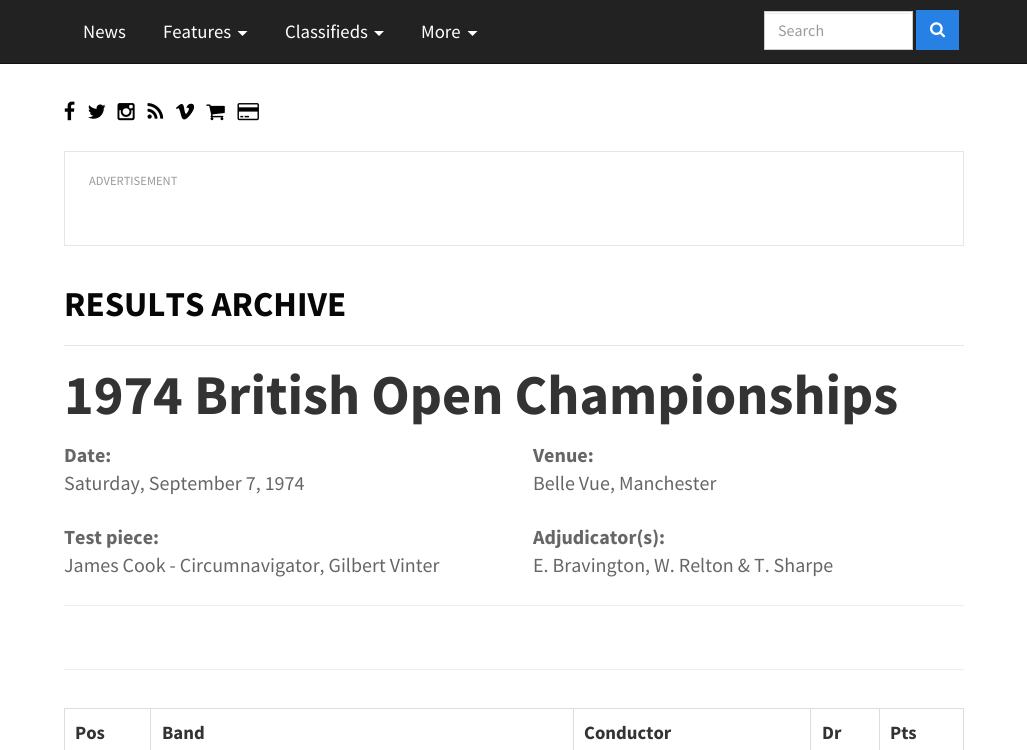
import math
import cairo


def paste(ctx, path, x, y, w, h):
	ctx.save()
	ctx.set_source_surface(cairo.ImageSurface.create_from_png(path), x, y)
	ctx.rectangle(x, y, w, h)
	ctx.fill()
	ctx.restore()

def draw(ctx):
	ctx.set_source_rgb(1, 1, 1)
	ctx.paint()
	ctx.set_source_rgb(0.133, 0.133, 0.133)
	ctx.rectangle(0, 0, 1027, 63)
	ctx.fill()
	ctx.set_source_rgb(0.071, 0.071, 0.071)
	ctx.rectangle(0, 63, 1027, 1)
	ctx.fill()
	ctx.select_font_face('Source Sans Pro')
	ctx.set_font_size(18.75)
	ctx.set_source_rgb(1, 1, 1)
	ctx.move_to(83, 38)
	ctx.show_text('News')
	ctx.move_to(163, 38)
	ctx.show_text('Features')
	ctx.new_path()
	ctx.move_to(237.5, 31)
	ctx.line_to(247.5, 31)
	ctx.line_to(242.5, 36)
	ctx.close_path()
	ctx.fill()
	ctx.move_to(285, 38)
	ctx.show_text('Classifieds')
	ctx.new_path()
	ctx.move_to(374, 31)
	ctx.line_to(384, 31)
	ctx.line_to(379, 36)
	ctx.close_path()
	ctx.fill()
	ctx.move_to(421, 38)
	ctx.show_text('More')
	ctx.new_path()
	ctx.move_to(467.5, 31)
	ctx.line_to(477.5, 31)
	ctx.line_to(472.5, 36)
	ctx.close_path()
	ctx.fill()
	ctx.rectangle(765, 12, 147, 37)
	ctx.fill()
	ctx.set_source_rgb(0.925, 0.925, 0.925)
	ctx.rectangle(765, 13, 146, 1)
	ctx.fill()
	ctx.rectangle(764.5, 11.5, 148, 38)
	ctx.set_source_rgb(0.8, 0.8, 0.8)
	ctx.set_line_width(1)
	ctx.stroke()
	ctx.set_font_size(16)
	ctx.set_source_rgb(0.6, 0.6, 0.6)
	ctx.move_to(778, 36)
	ctx.show_text('Search')
	ctx.set_source_rgb(0.153, 0.502, 0.89)
	ctx.rectangle(916, 10, 43, 40)
	ctx.fill()
	paste(ctx, 'media/1.png', 930, 22, 16, 16)
	paste(ctx, 'media/2.png', 64, 101, 11, 20)
	paste(ctx, 'media/3.png', 88, 104, 18, 15)
	paste(ctx, 'media/4.png', 117, 103, 18, 18)
	paste(ctx, 'media/5.png', 147, 103, 17, 16)
	paste(ctx, 'media/6.png', 176, 103, 19, 17)
	paste(ctx, 'media/7.png', 206, 104, 19, 17)
	paste(ctx, 'media/8.png', 237, 103, 22, 18)
	ctx.rectangle(64.5, 151.5, 899, 94)
	ctx.set_source_rgb(0.902, 0.902, 0.902)
	ctx.stroke()
	ctx.set_font_size(12.5)
	ctx.set_source_rgb(0.6, 0.6, 0.6)
	ctx.move_to(89, 185)
	ctx.show_text('ADVERTISEMENT')
	ctx.set_source_rgb(0.902, 0.902, 0.902)
	ctx.rectangle(64, 345, 900, 1)
	ctx.fill()
	ctx.select_font_face('Source Sans Pro', cairo.FONT_SLANT_NORMAL, cairo.FONT_WEIGHT_BOLD)
	ctx.set_font_size(35)
	ctx.set_source_rgb(0.031, 0.031, 0.031)
	ctx.move_to(64, 316)
	ctx.show_text('RESULTS ARCHIVE')
	ctx.set_font_size(56.25)
	ctx.set_source_rgb(0.2, 0.2, 0.2)
	ctx.move_to(64, 414)
	ctx.show_text('1974 British Open Championships')
	ctx.set_font_size(20)
	ctx.set_source_rgb(0.4, 0.4, 0.4)
	ctx.move_to(64, 462)
	ctx.show_text('Date:')
	ctx.select_font_face('Source Sans Pro')
	ctx.move_to(64, 490)
	ctx.show_text('Saturday, September 7, 1974')
	ctx.select_font_face('Source Sans Pro', cairo.FONT_SLANT_NORMAL, cairo.FONT_WEIGHT_BOLD)
	ctx.move_to(533, 462)
	ctx.show_text('Venue:')
	ctx.select_font_face('Source Sans Pro')
	ctx.move_to(533, 490)
	ctx.show_text('Belle Vue, Manchester')
	ctx.select_font_face('Source Sans Pro', cairo.FONT_SLANT_NORMAL, cairo.FONT_WEIGHT_BOLD)
	ctx.move_to(64, 544)
	ctx.show_text('Test piece:')
	ctx.select_font_face('Source Sans Pro')
	ctx.move_to(64, 572)
	ctx.show_text('James Cook - Circumnavigator, Gilbert Vinter')
	ctx.select_font_face('Source Sans Pro', cairo.FONT_SLANT_NORMAL, cairo.FONT_WEIGHT_BOLD)
	ctx.move_to(533, 544)
	ctx.show_text('Adjudicator(s):')
	ctx.select_font_face('Source Sans Pro')
	ctx.move_to(533, 572)
	ctx.show_text('E. Bravington, W. Relton & T. Sharpe')
	ctx.set_source_rgb(0.933, 0.933, 0.933)
	ctx.rectangle(64, 605, 900, 1)
	ctx.rectangle(64, 669, 900, 1)
	ctx.fill()
	ctx.set_source_rgb(0.867, 0.867, 0.867)
	ctx.rectangle(64, 708, 900, 1)
	ctx.rectangle(963, 708, 1, 42)
	ctx.rectangle(64, 708, 1, 42)
	ctx.fill()
	ctx.select_font_face('Source Sans Pro', cairo.FONT_SLANT_NORMAL, cairo.FONT_WEIGHT_BOLD)
	ctx.set_font_size(18.75)
	ctx.set_source_rgb(0.2, 0.2, 0.2)
	ctx.move_to(75, 739)
	ctx.show_text('Pos')
	ctx.set_source_rgb(0.867, 0.867, 0.867)
	ctx.rectangle(150, 708, 1, 42)
	ctx.fill()
	ctx.set_source_rgb(0.2, 0.2, 0.2)
	ctx.move_to(162, 739)
	ctx.show_text('Band')
	ctx.set_source_rgb(0.867, 0.867, 0.867)
	ctx.rectangle(573, 708, 1, 42)
	ctx.fill()
	ctx.set_source_rgb(0.2, 0.2, 0.2)
	ctx.move_to(584, 739)
	ctx.show_text('Conductor')
	ctx.set_source_rgb(0.867, 0.867, 0.867)
	ctx.rectangle(810, 708, 1, 42)
	ctx.fill()
	ctx.set_source_rgb(0.2, 0.2, 0.2)
	ctx.move_to(822, 739)
	ctx.show_text('Dr')
	ctx.set_source_rgb(0.867, 0.867, 0.867)
	ctx.rectangle(879, 708, 1, 42)
	ctx.fill()
	ctx.set_source_rgb(0.2, 0.2, 0.2)
	ctx.move_to(890, 739)
	ctx.show_text('Pts')


surface = cairo.ImageSurface(cairo.FORMAT_RGB24, 1027, 750)
ctx = cairo.Context(surface)
options = cairo.FontOptions()
options.set_hint_metrics(cairo.HINT_METRICS_OFF)
options.set_hint_style(cairo.HINT_STYLE_NONE)
ctx.set_font_options(options)
ctx.set_miter_limit(4)
draw(ctx)
surface.write_to_png('image.png')
